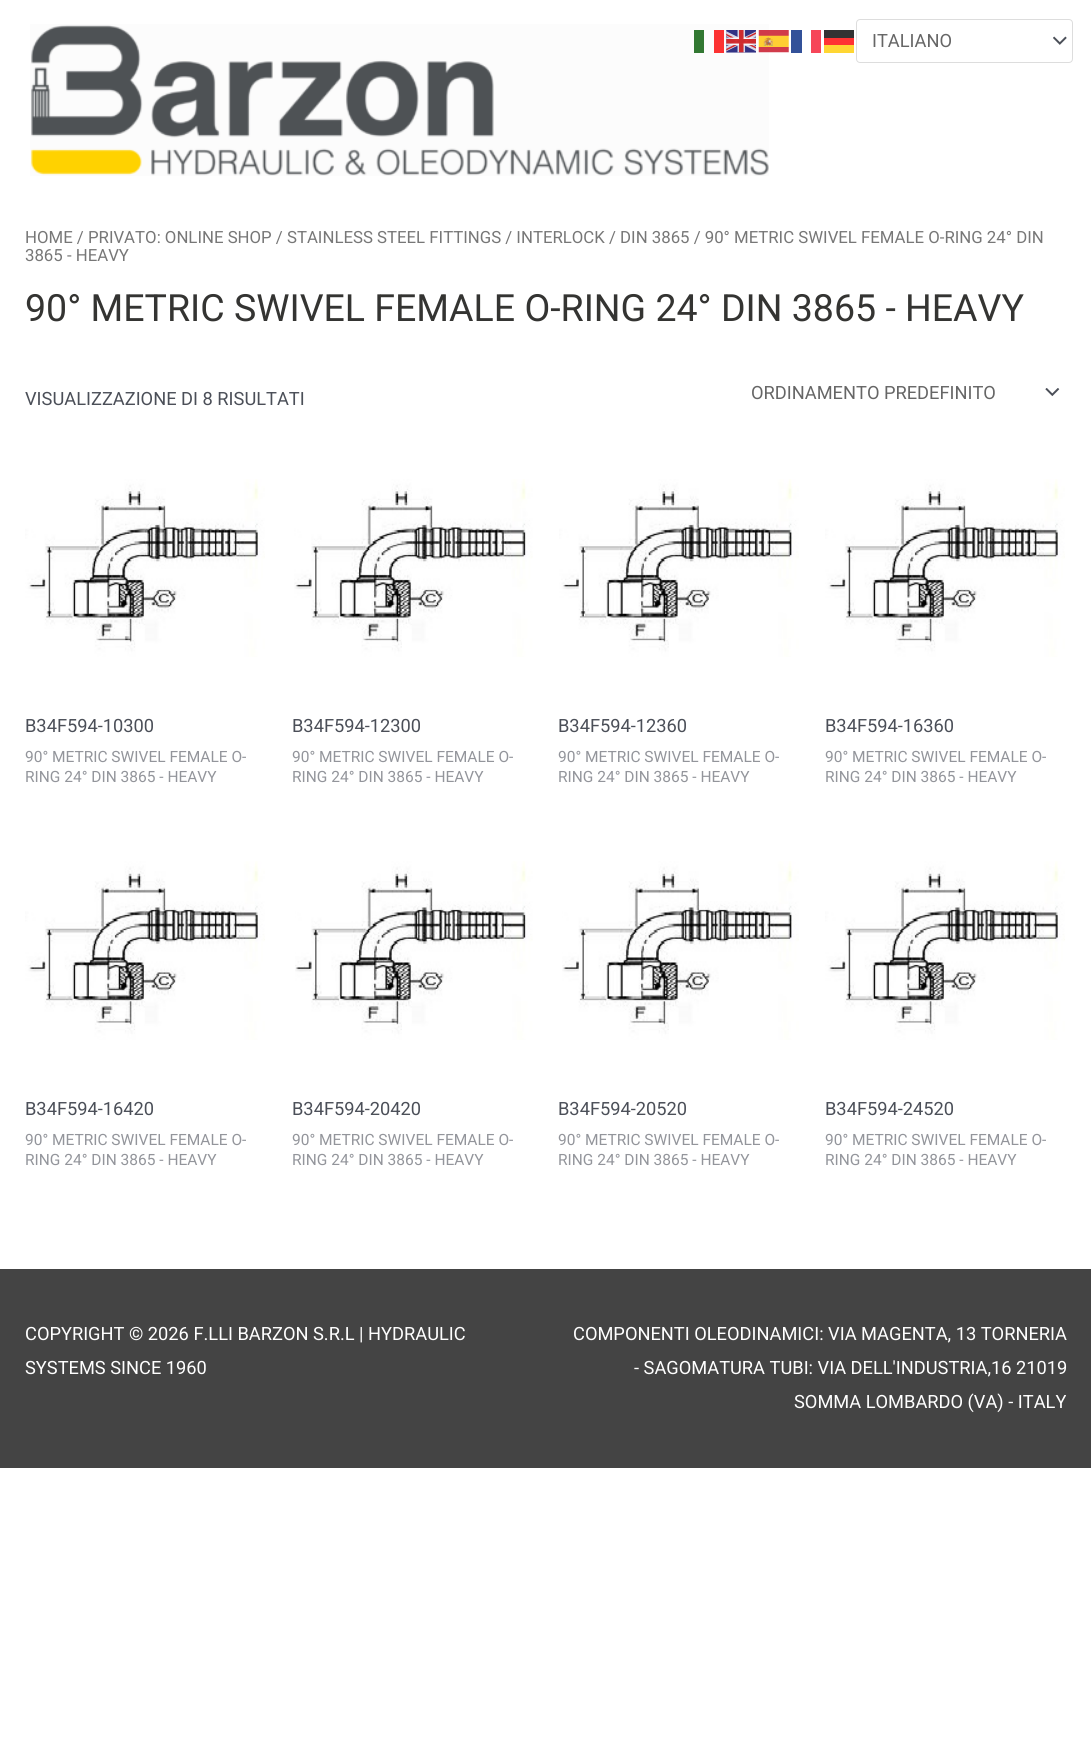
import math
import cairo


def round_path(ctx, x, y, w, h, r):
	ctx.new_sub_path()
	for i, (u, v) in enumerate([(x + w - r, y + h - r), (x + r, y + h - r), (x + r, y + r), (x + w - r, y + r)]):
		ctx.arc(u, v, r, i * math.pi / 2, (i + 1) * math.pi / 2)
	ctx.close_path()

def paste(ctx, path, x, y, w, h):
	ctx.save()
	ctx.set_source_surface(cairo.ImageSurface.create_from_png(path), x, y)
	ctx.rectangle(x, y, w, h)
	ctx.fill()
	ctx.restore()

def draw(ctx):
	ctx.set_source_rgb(1, 1, 1)
	ctx.paint()
	paste(ctx, 'media/4.png', 30, 24, 739, 152)
	ctx.set_source_rgb(0.196, 0.471, 0.196)
	ctx.rectangle(694, 30, 10, 23)
	ctx.fill()
	ctx.set_source_rgb(0.988, 0.196, 0.196)
	ctx.rectangle(714, 30, 10, 23)
	ctx.fill()
	paste(ctx, 'media/1.png', 726, 30, 30, 23)
	paste(ctx, 'media/2.png', 758, 30, 31, 23)
	ctx.set_source_rgb(0.2, 0.318, 0.6)
	ctx.rectangle(791, 30, 11, 23)
	ctx.fill()
	ctx.set_source_rgb(0.961, 0.275, 0.349)
	ctx.rectangle(811, 30, 10, 23)
	ctx.fill()
	ctx.set_source_rgb(0.2, 0.2, 0.2)
	ctx.rectangle(824, 30, 30, 8)
	ctx.fill()
	paste(ctx, 'media/3.png', 1053, 36, 14, 9)
	round_path(ctx, 856.5, 19.5, 216, 43, 3.5)
	ctx.set_source_rgb(0.867, 0.867, 0.867)
	ctx.set_line_width(1)
	ctx.stroke()
	ctx.select_font_face('Roboto')
	ctx.set_font_size(18.25)
	ctx.set_source_rgb(0.4, 0.4, 0.4)
	ctx.move_to(872, 47)
	ctx.show_text('ITALIANO')
	ctx.set_source_rgb(1, 0.2, 0.2)
	ctx.rectangle(824, 38, 30, 7)
	ctx.fill()
	ctx.set_source_rgb(1, 0.839, 0.2)
	ctx.rectangle(824, 45, 30, 8)
	ctx.fill()
	ctx.set_font_size(16.78)
	ctx.set_source_rgb(0.467, 0.467, 0.467)
	ctx.move_to(25, 243)
	ctx.show_text('HOME / PRIVATO: ONLINE SHOP / STAINLESS STEEL FITTINGS / INTERLOCK / DIN 3865 / 90° METRIC SWIVEL FEMALE O-RING 24° DIN')
	ctx.move_to(25, 261)
	ctx.show_text('3865 - HEAVY')
	ctx.set_font_size(37.5)
	ctx.set_source_rgb(0.204, 0.204, 0.196)
	ctx.move_to(25, 321)
	ctx.show_text('90° METRIC SWIVEL FEMALE O-RING 24° DIN 3865 - HEAVY')
	ctx.set_font_size(18.25)
	ctx.set_source_rgb(0.294, 0.31, 0.345)
	ctx.move_to(25, 405)
	ctx.show_text('VISUALIZZAZIONE DI 8 RISULTATI')
	paste(ctx, 'media/5.png', 1045, 388, 15, 9)
	ctx.set_source_rgb(0.4, 0.4, 0.4)
	ctx.move_to(751, 399)
	ctx.show_text('ORDINAMENTO PREDEFINITO')
	paste(ctx, 'media/6.png', 25, 479, 240, 178)
	ctx.set_source_rgb(0.294, 0.31, 0.345)
	ctx.move_to(25, 732)
	ctx.show_text('B34F594-10300')
	ctx.set_font_size(15.5)
	ctx.set_source_rgb(0.576, 0.584, 0.608)
	ctx.move_to(25, 762)
	ctx.show_text('90° METRIC SWIVEL FEMALE O-')
	ctx.move_to(25, 782)
	ctx.show_text('RING 24° DIN 3865 - HEAVY')
	paste(ctx, 'media/7.png', 294, 479, 239, 178)
	ctx.set_font_size(18.25)
	ctx.set_source_rgb(0.294, 0.31, 0.345)
	ctx.move_to(292, 732)
	ctx.show_text('B34F594-12300')
	ctx.set_font_size(15.5)
	ctx.set_source_rgb(0.576, 0.584, 0.608)
	ctx.move_to(292, 762)
	ctx.show_text('90° METRIC SWIVEL FEMALE O-')
	ctx.move_to(292, 782)
	ctx.show_text('RING 24° DIN 3865 - HEAVY')
	paste(ctx, 'media/8.png', 559, 479, 240, 178)
	ctx.set_font_size(18.25)
	ctx.set_source_rgb(0.294, 0.31, 0.345)
	ctx.move_to(558, 732)
	ctx.show_text('B34F594-12360')
	ctx.set_font_size(15.5)
	ctx.set_source_rgb(0.576, 0.584, 0.608)
	ctx.move_to(558, 762)
	ctx.show_text('90° METRIC SWIVEL FEMALE O-')
	ctx.move_to(558, 782)
	ctx.show_text('RING 24° DIN 3865 - HEAVY')
	paste(ctx, 'media/9.png', 825, 479, 240, 178)
	ctx.set_font_size(18.25)
	ctx.set_source_rgb(0.294, 0.31, 0.345)
	ctx.move_to(825, 732)
	ctx.show_text('B34F594-16360')
	ctx.set_font_size(15.5)
	ctx.set_source_rgb(0.576, 0.584, 0.608)
	ctx.move_to(825, 762)
	ctx.show_text('90° METRIC SWIVEL FEMALE O-')
	ctx.move_to(825, 782)
	ctx.show_text('RING 24° DIN 3865 - HEAVY')
	paste(ctx, 'media/10.png', 25, 861, 240, 179)
	ctx.set_font_size(18.25)
	ctx.set_source_rgb(0.294, 0.31, 0.345)
	ctx.move_to(25, 1115)
	ctx.show_text('B34F594-16420')
	ctx.set_font_size(15.5)
	ctx.set_source_rgb(0.576, 0.584, 0.608)
	ctx.move_to(25, 1145)
	ctx.show_text('90° METRIC SWIVEL FEMALE O-')
	ctx.move_to(25, 1165)
	ctx.show_text('RING 24° DIN 3865 - HEAVY')
	paste(ctx, 'media/11.png', 295, 861, 238, 179)
	ctx.set_font_size(18.25)
	ctx.set_source_rgb(0.294, 0.31, 0.345)
	ctx.move_to(292, 1115)
	ctx.show_text('B34F594-20420')
	ctx.set_font_size(15.5)
	ctx.set_source_rgb(0.576, 0.584, 0.608)
	ctx.move_to(292, 1145)
	ctx.show_text('90° METRIC SWIVEL FEMALE O-')
	ctx.move_to(292, 1165)
	ctx.show_text('RING 24° DIN 3865 - HEAVY')
	paste(ctx, 'media/12.png', 562, 861, 237, 179)
	ctx.set_font_size(18.25)
	ctx.set_source_rgb(0.294, 0.31, 0.345)
	ctx.move_to(558, 1115)
	ctx.show_text('B34F594-20520')
	ctx.set_font_size(15.5)
	ctx.set_source_rgb(0.576, 0.584, 0.608)
	ctx.move_to(558, 1145)
	ctx.show_text('90° METRIC SWIVEL FEMALE O-')
	ctx.move_to(558, 1165)
	ctx.show_text('RING 24° DIN 3865 - HEAVY')
	paste(ctx, 'media/13.png', 825, 861, 240, 179)
	ctx.set_font_size(18.25)
	ctx.set_source_rgb(0.294, 0.31, 0.345)
	ctx.move_to(825, 1115)
	ctx.show_text('B34F594-24520')
	ctx.set_font_size(15.5)
	ctx.set_source_rgb(0.576, 0.584, 0.608)
	ctx.move_to(825, 1145)
	ctx.show_text('90° METRIC SWIVEL FEMALE O-')
	ctx.move_to(825, 1165)
	ctx.show_text('RING 24° DIN 3865 - HEAVY')
	ctx.set_source_rgb(0.267, 0.267, 0.267)
	ctx.rectangle(0, 1269, 1091, 199)
	ctx.fill()
	ctx.set_font_size(18.25)
	ctx.set_source_rgb(1, 1, 1)
	for x, y, s in [
		(25, 1340, 'COPYRIGHT © 2026 F.LLI BARZON S.R.L | HYDRAULIC'),
		(25, 1374, 'SYSTEMS SINCE 1960'),
		(573, 1340, 'COMPONENTI OLEODINAMICI: VIA MAGENTA, 13 TORNERIA'),
		(634, 1374, '- SAGOMATURA TUBI: VIA DELL\'INDUSTRIA,16 21019'),
		(794, 1408, 'SOMMA LOMBARDO (VA) - ITALY'),
	]:
		ctx.move_to(x, y)
		ctx.show_text(s)


surface = cairo.ImageSurface(cairo.FORMAT_RGB24, 1091, 1743)
ctx = cairo.Context(surface)
options = cairo.FontOptions()
options.set_hint_metrics(cairo.HINT_METRICS_OFF)
options.set_hint_style(cairo.HINT_STYLE_NONE)
ctx.set_font_options(options)
ctx.set_miter_limit(4)
draw(ctx)
surface.write_to_png('image.png')
